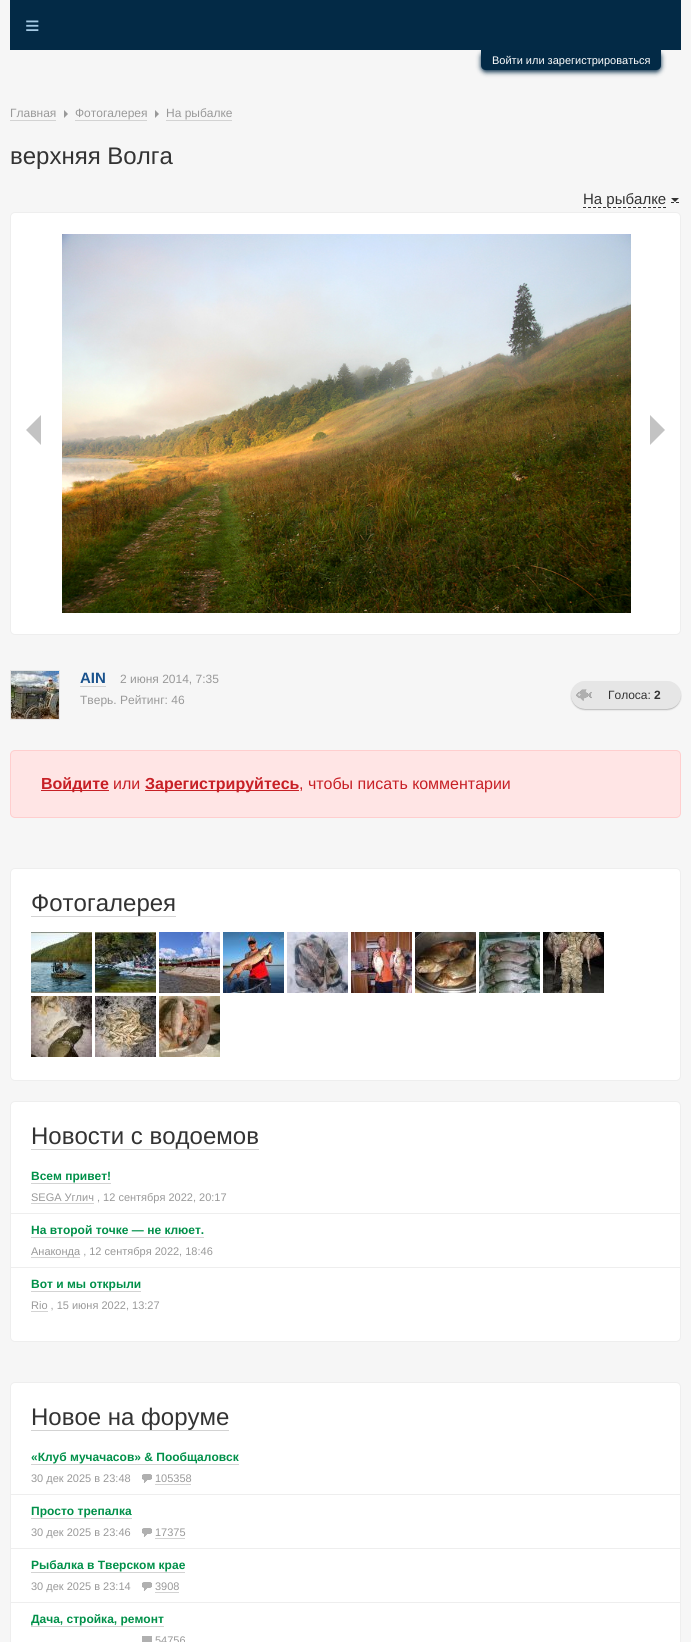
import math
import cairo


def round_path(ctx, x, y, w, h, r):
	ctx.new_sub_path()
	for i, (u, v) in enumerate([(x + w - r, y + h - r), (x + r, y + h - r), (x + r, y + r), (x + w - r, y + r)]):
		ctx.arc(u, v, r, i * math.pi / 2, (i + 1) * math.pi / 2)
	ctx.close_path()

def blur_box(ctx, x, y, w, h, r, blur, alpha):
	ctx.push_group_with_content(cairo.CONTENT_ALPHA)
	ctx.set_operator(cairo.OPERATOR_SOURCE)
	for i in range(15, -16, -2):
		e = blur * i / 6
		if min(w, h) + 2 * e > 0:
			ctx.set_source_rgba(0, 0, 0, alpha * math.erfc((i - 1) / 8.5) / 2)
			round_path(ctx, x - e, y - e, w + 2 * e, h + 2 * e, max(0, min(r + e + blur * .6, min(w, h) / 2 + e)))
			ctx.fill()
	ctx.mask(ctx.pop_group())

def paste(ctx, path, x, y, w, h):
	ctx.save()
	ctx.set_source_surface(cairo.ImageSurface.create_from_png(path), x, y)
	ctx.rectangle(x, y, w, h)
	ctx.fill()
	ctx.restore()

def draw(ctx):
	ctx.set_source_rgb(0.961, 0.961, 0.961)
	ctx.paint()
	ctx.set_source_rgb(0.012, 0.165, 0.275)
	ctx.rectangle(10, 0, 671, 50)
	ctx.fill()
	ctx.select_font_face('Liberation Sans')
	ctx.set_font_size(25)
	ctx.set_source_rgb(0.647, 0.792, 0.894)
	ctx.move_to(25, 34)
	ctx.show_text('≡')
	ctx.set_source_rgb(0.012, 0.165, 0.275)
	blur_box(ctx, 481, 52, 180, 20, 5, 2.5, 1)
	ctx.set_source_rgb(0.012, 0.165, 0.275)
	ctx.new_path()
	ctx.move_to(481, 50)
	ctx.line_to(661, 50)
	ctx.line_to(661, 65)
	ctx.curve_to(661, 68, 659, 70, 656, 70)
	ctx.line_to(486, 70)
	ctx.curve_to(483, 70, 481, 68, 481, 65)
	ctx.close_path()
	ctx.fill()
	ctx.set_font_size(11)
	ctx.set_source_rgb(1, 1, 1)
	ctx.move_to(492, 64)
	ctx.show_text('Войти или зарегистрироваться')
	ctx.set_font_size(12)
	ctx.set_source_rgb(0.6, 0.6, 0.6)
	ctx.move_to(10, 117)
	ctx.show_text('Главная')
	ctx.set_source_rgb(0.827, 0.827, 0.827)
	ctx.rectangle(10, 120, 46, 1)
	ctx.fill()
	ctx.set_source_rgb(0.6, 0.6, 0.6)
	ctx.new_path()
	ctx.move_to(64, 118)
	ctx.line_to(64, 110)
	ctx.line_to(68, 114)
	ctx.close_path()
	ctx.fill()
	ctx.move_to(75, 117)
	ctx.show_text('Фотогалерея')
	ctx.set_source_rgb(0.827, 0.827, 0.827)
	ctx.rectangle(75, 120, 72, 1)
	ctx.fill()
	ctx.set_source_rgb(0.6, 0.6, 0.6)
	ctx.new_path()
	ctx.move_to(155, 118)
	ctx.line_to(155, 110)
	ctx.line_to(159, 114)
	ctx.close_path()
	ctx.fill()
	ctx.move_to(166, 117)
	ctx.show_text('На рыбалке')
	ctx.set_source_rgb(0.827, 0.827, 0.827)
	ctx.rectangle(166, 120, 66, 1)
	ctx.fill()
	ctx.set_font_size(24)
	ctx.set_source_rgb(0.2, 0.2, 0.2)
	ctx.move_to(10, 164)
	ctx.show_text('верхняя Волга')
	ctx.new_path()
	ctx.move_to(583, 207.5)
	ctx.line_to(666, 207.5)
	ctx.set_line_width(1)
	ctx.set_dash([3, 2])
	ctx.stroke()
	ctx.new_path()
	ctx.move_to(671, 202.5)
	ctx.line_to(674, 202.5)
	ctx.move_to(676, 202.5)
	ctx.line_to(679, 202.5)
	ctx.set_dash([])
	ctx.stroke()
	ctx.set_font_size(15)
	ctx.move_to(583, 204)
	ctx.show_text('На рыбалке')
	ctx.new_path()
	ctx.move_to(671, 198)
	ctx.line_to(679, 198)
	ctx.line_to(675, 202)
	ctx.close_path()
	ctx.fill()
	ctx.set_source_rgb(1, 1, 1)
	round_path(ctx, 10.5, 212.5, 670, 422, 4.5)
	ctx.fill_preserve()
	ctx.set_source_rgb(0.933, 0.933, 0.933)
	ctx.stroke()
	ctx.set_source_rgb(0.765, 0.765, 0.765)
	ctx.new_path()
	ctx.move_to(41, 415)
	ctx.line_to(41, 445)
	ctx.line_to(26, 430)
	ctx.close_path()
	ctx.fill()
	paste(ctx, 'media/1.png', 62, 234, 569, 379)
	ctx.new_path()
	ctx.move_to(650, 445)
	ctx.line_to(650, 415)
	ctx.line_to(665, 430)
	ctx.close_path()
	ctx.fill()
	ctx.rectangle(10.5, 670.5, 49, 49)
	ctx.set_source_rgb(0.902, 0.902, 0.902)
	ctx.stroke()
	paste(ctx, 'media/2.png', 11, 671, 48, 48)
	ctx.select_font_face('Liberation Sans', cairo.FONT_SLANT_NORMAL, cairo.FONT_WEIGHT_BOLD)
	ctx.set_source_rgb(0.098, 0.322, 0.553)
	ctx.move_to(80, 683)
	ctx.show_text('AIN')
	ctx.set_source_rgb(0.827, 0.827, 0.827)
	ctx.rectangle(80, 686, 26, 1)
	ctx.fill()
	ctx.select_font_face('Liberation Sans')
	ctx.set_font_size(12)
	ctx.set_source_rgb(0.6, 0.6, 0.6)
	ctx.move_to(120, 683)
	ctx.show_text('2 июня 2014, 7:35')
	ctx.move_to(80, 704)
	ctx.show_text('Тверь. Рейтинг: 46')
	ctx.set_source_rgb(0, 0, 0)
	blur_box(ctx, 572, 683, 108, 26, 13, 1, 0.6)
	ctx.set_source_rgb(0.902, 0.902, 0.902)
	round_path(ctx, 571, 681, 110, 28, 14)
	ctx.fill()
	paste(ctx, 'media/3.png', 576, 689, 16, 12)
	ctx.set_source_rgb(0.2, 0.2, 0.2)
	ctx.move_to(608, 699)
	ctx.show_text('Голоса:')
	ctx.select_font_face('Liberation Sans', cairo.FONT_SLANT_NORMAL, cairo.FONT_WEIGHT_BOLD)
	ctx.move_to(654, 699)
	ctx.show_text('2')
	ctx.set_source_rgb(1, 0.898, 0.898)
	round_path(ctx, 10.5, 750.5, 670, 67, 4.5)
	ctx.fill_preserve()
	ctx.set_source_rgb(1, 0.808, 0.808)
	ctx.stroke()
	ctx.set_source_rgb(0.78, 0.125, 0.149)
	ctx.rectangle(41, 790, 68, 1)
	ctx.fill()
	ctx.set_font_size(16)
	ctx.move_to(41, 789)
	ctx.show_text('Войдите')
	ctx.select_font_face('Liberation Sans')
	ctx.move_to(113, 789)
	ctx.show_text('или')
	ctx.rectangle(145, 790, 154, 1)
	ctx.fill()
	ctx.select_font_face('Liberation Sans', cairo.FONT_SLANT_NORMAL, cairo.FONT_WEIGHT_BOLD)
	ctx.move_to(145, 789)
	ctx.show_text('Зарегистрируйтесь')
	ctx.select_font_face('Liberation Sans')
	ctx.move_to(299, 789)
	ctx.show_text(', чтобы писать комментарии')
	ctx.set_source_rgb(1, 1, 1)
	round_path(ctx, 10.5, 868.5, 670, 212, 4.5)
	ctx.fill_preserve()
	ctx.set_source_rgb(0.933, 0.933, 0.933)
	ctx.stroke()
	ctx.set_font_size(24)
	ctx.set_source_rgb(0.2, 0.2, 0.2)
	ctx.move_to(31, 911)
	ctx.show_text('Фотогалерея')
	ctx.set_source_rgb(0.827, 0.827, 0.827)
	ctx.rectangle(31, 916, 145, 1)
	ctx.fill()
	paste(ctx, 'media/4.png', 31, 932, 61, 61)
	paste(ctx, 'media/5.png', 95, 932, 61, 61)
	paste(ctx, 'media/6.png', 159, 932, 61, 61)
	paste(ctx, 'media/7.png', 223, 932, 61, 61)
	paste(ctx, 'media/8.png', 287, 932, 61, 61)
	paste(ctx, 'media/9.png', 351, 932, 61, 61)
	paste(ctx, 'media/10.png', 415, 932, 61, 61)
	paste(ctx, 'media/11.png', 479, 932, 61, 61)
	paste(ctx, 'media/12.png', 543, 932, 61, 61)
	paste(ctx, 'media/13.png', 31, 996, 61, 61)
	paste(ctx, 'media/14.png', 95, 996, 61, 61)
	paste(ctx, 'media/15.png', 159, 996, 61, 61)
	ctx.set_source_rgb(1, 1, 1)
	round_path(ctx, 10.5, 1101.5, 670, 240, 4.5)
	ctx.fill_preserve()
	ctx.set_source_rgb(0.933, 0.933, 0.933)
	ctx.stroke()
	ctx.set_source_rgb(0.2, 0.2, 0.2)
	ctx.move_to(31, 1144)
	ctx.show_text('Новости с водоемов')
	ctx.set_source_rgb(0.827, 0.827, 0.827)
	ctx.rectangle(31, 1149, 228, 1)
	ctx.fill()
	ctx.select_font_face('Liberation Sans', cairo.FONT_SLANT_NORMAL, cairo.FONT_WEIGHT_BOLD)
	ctx.set_font_size(12)
	ctx.set_source_rgb(0, 0.565, 0.286)
	ctx.move_to(31, 1180)
	ctx.show_text('Всем привет!')
	ctx.set_source_rgb(0.827, 0.827, 0.827)
	ctx.rectangle(31, 1183, 80, 1)
	ctx.fill()
	ctx.rectangle(31, 1203, 63, 1)
	ctx.fill()
	ctx.select_font_face('Liberation Sans')
	ctx.set_font_size(11)
	ctx.set_source_rgb(0.6, 0.6, 0.6)
	ctx.move_to(31, 1201)
	ctx.show_text('SEGA Углич , 12 сентября 2022, 20:17')
	ctx.set_source_rgb(0.933, 0.933, 0.933)
	ctx.rectangle(11, 1213, 669, 1)
	ctx.fill()
	ctx.select_font_face('Liberation Sans', cairo.FONT_SLANT_NORMAL, cairo.FONT_WEIGHT_BOLD)
	ctx.set_font_size(12)
	ctx.set_source_rgb(0, 0.565, 0.286)
	ctx.move_to(31, 1234)
	ctx.show_text('На второй точке — не клюет.')
	ctx.set_source_rgb(0.827, 0.827, 0.827)
	ctx.rectangle(31, 1237, 173, 1)
	ctx.fill()
	ctx.rectangle(31, 1257, 49, 1)
	ctx.fill()
	ctx.select_font_face('Liberation Sans')
	ctx.set_font_size(11)
	ctx.set_source_rgb(0.6, 0.6, 0.6)
	ctx.move_to(31, 1255)
	ctx.show_text('Анаконда , 12 сентября 2022, 18:46')
	ctx.set_source_rgb(0.933, 0.933, 0.933)
	ctx.rectangle(11, 1267, 669, 1)
	ctx.fill()
	ctx.select_font_face('Liberation Sans', cairo.FONT_SLANT_NORMAL, cairo.FONT_WEIGHT_BOLD)
	ctx.set_font_size(12)
	ctx.set_source_rgb(0, 0.565, 0.286)
	ctx.move_to(31, 1288)
	ctx.show_text('Вот и мы открыли')
	ctx.set_source_rgb(0.827, 0.827, 0.827)
	ctx.rectangle(31, 1291, 110, 1)
	ctx.fill()
	ctx.select_font_face('Liberation Sans')
	ctx.set_font_size(11)
	ctx.set_source_rgb(0.6, 0.6, 0.6)
	ctx.move_to(31, 1309)
	ctx.show_text('Rio , 15 июня 2022, 13:27')
	ctx.set_source_rgb(0.827, 0.827, 0.827)
	ctx.rectangle(31, 1311, 17, 1)
	ctx.fill()
	ctx.set_source_rgb(1, 1, 1)
	round_path(ctx, 10.5, 1382.5, 670, 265, 4.5)
	ctx.fill_preserve()
	ctx.set_source_rgb(0.933, 0.933, 0.933)
	ctx.stroke()
	ctx.set_font_size(24)
	ctx.set_source_rgb(0.2, 0.2, 0.2)
	ctx.move_to(31, 1425)
	ctx.show_text('Новое на форуме')
	ctx.set_source_rgb(0.827, 0.827, 0.827)
	ctx.rectangle(31, 1430, 198, 1)
	ctx.fill()
	ctx.select_font_face('Liberation Sans', cairo.FONT_SLANT_NORMAL, cairo.FONT_WEIGHT_BOLD)
	ctx.set_font_size(12)
	ctx.set_source_rgb(0, 0.565, 0.286)
	ctx.move_to(31, 1461)
	ctx.show_text('«Клуб мучачасов» & Пообщаловск')
	ctx.set_source_rgb(0.827, 0.827, 0.827)
	ctx.rectangle(31, 1464, 208, 1)
	ctx.fill()
	ctx.select_font_face('Liberation Sans')
	ctx.set_font_size(11)
	ctx.set_source_rgb(0.6, 0.6, 0.6)
	ctx.move_to(31, 1482)
	ctx.show_text('30 дек 2025 в 23:48')
	paste(ctx, 'media/16.png', 142, 1474, 10, 9)
	ctx.move_to(155, 1482)
	ctx.show_text('105358')
	ctx.set_source_rgb(0.827, 0.827, 0.827)
	ctx.rectangle(155, 1484, 36, 1)
	ctx.fill()
	ctx.set_source_rgb(0.933, 0.933, 0.933)
	ctx.rectangle(11, 1494, 669, 1)
	ctx.fill()
	ctx.select_font_face('Liberation Sans', cairo.FONT_SLANT_NORMAL, cairo.FONT_WEIGHT_BOLD)
	ctx.set_font_size(12)
	ctx.set_source_rgb(0, 0.565, 0.286)
	ctx.move_to(31, 1515)
	ctx.show_text('Просто трепалка')
	ctx.set_source_rgb(0.827, 0.827, 0.827)
	ctx.rectangle(31, 1518, 101, 1)
	ctx.fill()
	ctx.select_font_face('Liberation Sans')
	ctx.set_font_size(11)
	ctx.set_source_rgb(0.6, 0.6, 0.6)
	ctx.move_to(31, 1536)
	ctx.show_text('30 дек 2025 в 23:46')
	paste(ctx, 'media/16.png', 142, 1528, 10, 9)
	ctx.move_to(155, 1536)
	ctx.show_text('17375')
	ctx.set_source_rgb(0.827, 0.827, 0.827)
	ctx.rectangle(155, 1538, 30, 1)
	ctx.fill()
	ctx.set_source_rgb(0.933, 0.933, 0.933)
	ctx.rectangle(11, 1548, 669, 1)
	ctx.fill()
	ctx.select_font_face('Liberation Sans', cairo.FONT_SLANT_NORMAL, cairo.FONT_WEIGHT_BOLD)
	ctx.set_font_size(12)
	ctx.set_source_rgb(0, 0.565, 0.286)
	ctx.move_to(31, 1569)
	ctx.show_text('Рыбалка в Тверском крае')
	ctx.set_source_rgb(0.827, 0.827, 0.827)
	ctx.rectangle(31, 1572, 154, 1)
	ctx.fill()
	ctx.select_font_face('Liberation Sans')
	ctx.set_font_size(11)
	ctx.set_source_rgb(0.6, 0.6, 0.6)
	ctx.move_to(31, 1590)
	ctx.show_text('30 дек 2025 в 23:14')
	paste(ctx, 'media/16.png', 142, 1582, 10, 9)
	ctx.move_to(155, 1590)
	ctx.show_text('3908')
	ctx.set_source_rgb(0.827, 0.827, 0.827)
	ctx.rectangle(155, 1592, 24, 1)
	ctx.fill()
	ctx.set_source_rgb(0.933, 0.933, 0.933)
	ctx.rectangle(11, 1602, 669, 1)
	ctx.fill()
	ctx.select_font_face('Liberation Sans', cairo.FONT_SLANT_NORMAL, cairo.FONT_WEIGHT_BOLD)
	ctx.set_font_size(12)
	ctx.set_source_rgb(0, 0.565, 0.286)
	ctx.move_to(31, 1623)
	ctx.show_text('Дача, стройка, ремонт')
	ctx.set_source_rgb(0.827, 0.827, 0.827)
	ctx.rectangle(31, 1626, 133, 1)
	ctx.fill()
	ctx.select_font_face('Liberation Sans')
	ctx.set_font_size(11)
	ctx.set_source_rgb(0.6, 0.6, 0.6)
	ctx.move_to(155, 1644)
	ctx.show_text('54756')
	ctx.set_source_rgb(0.69, 0.69, 0.69)
	ctx.rectangle(142, 1636, 10, 6)
	ctx.fill()


surface = cairo.ImageSurface(cairo.FORMAT_RGB24, 691, 1642)
ctx = cairo.Context(surface)
options = cairo.FontOptions()
options.set_hint_metrics(cairo.HINT_METRICS_OFF)
options.set_hint_style(cairo.HINT_STYLE_NONE)
ctx.set_font_options(options)
ctx.set_miter_limit(4)
draw(ctx)
surface.write_to_png('image.png')
